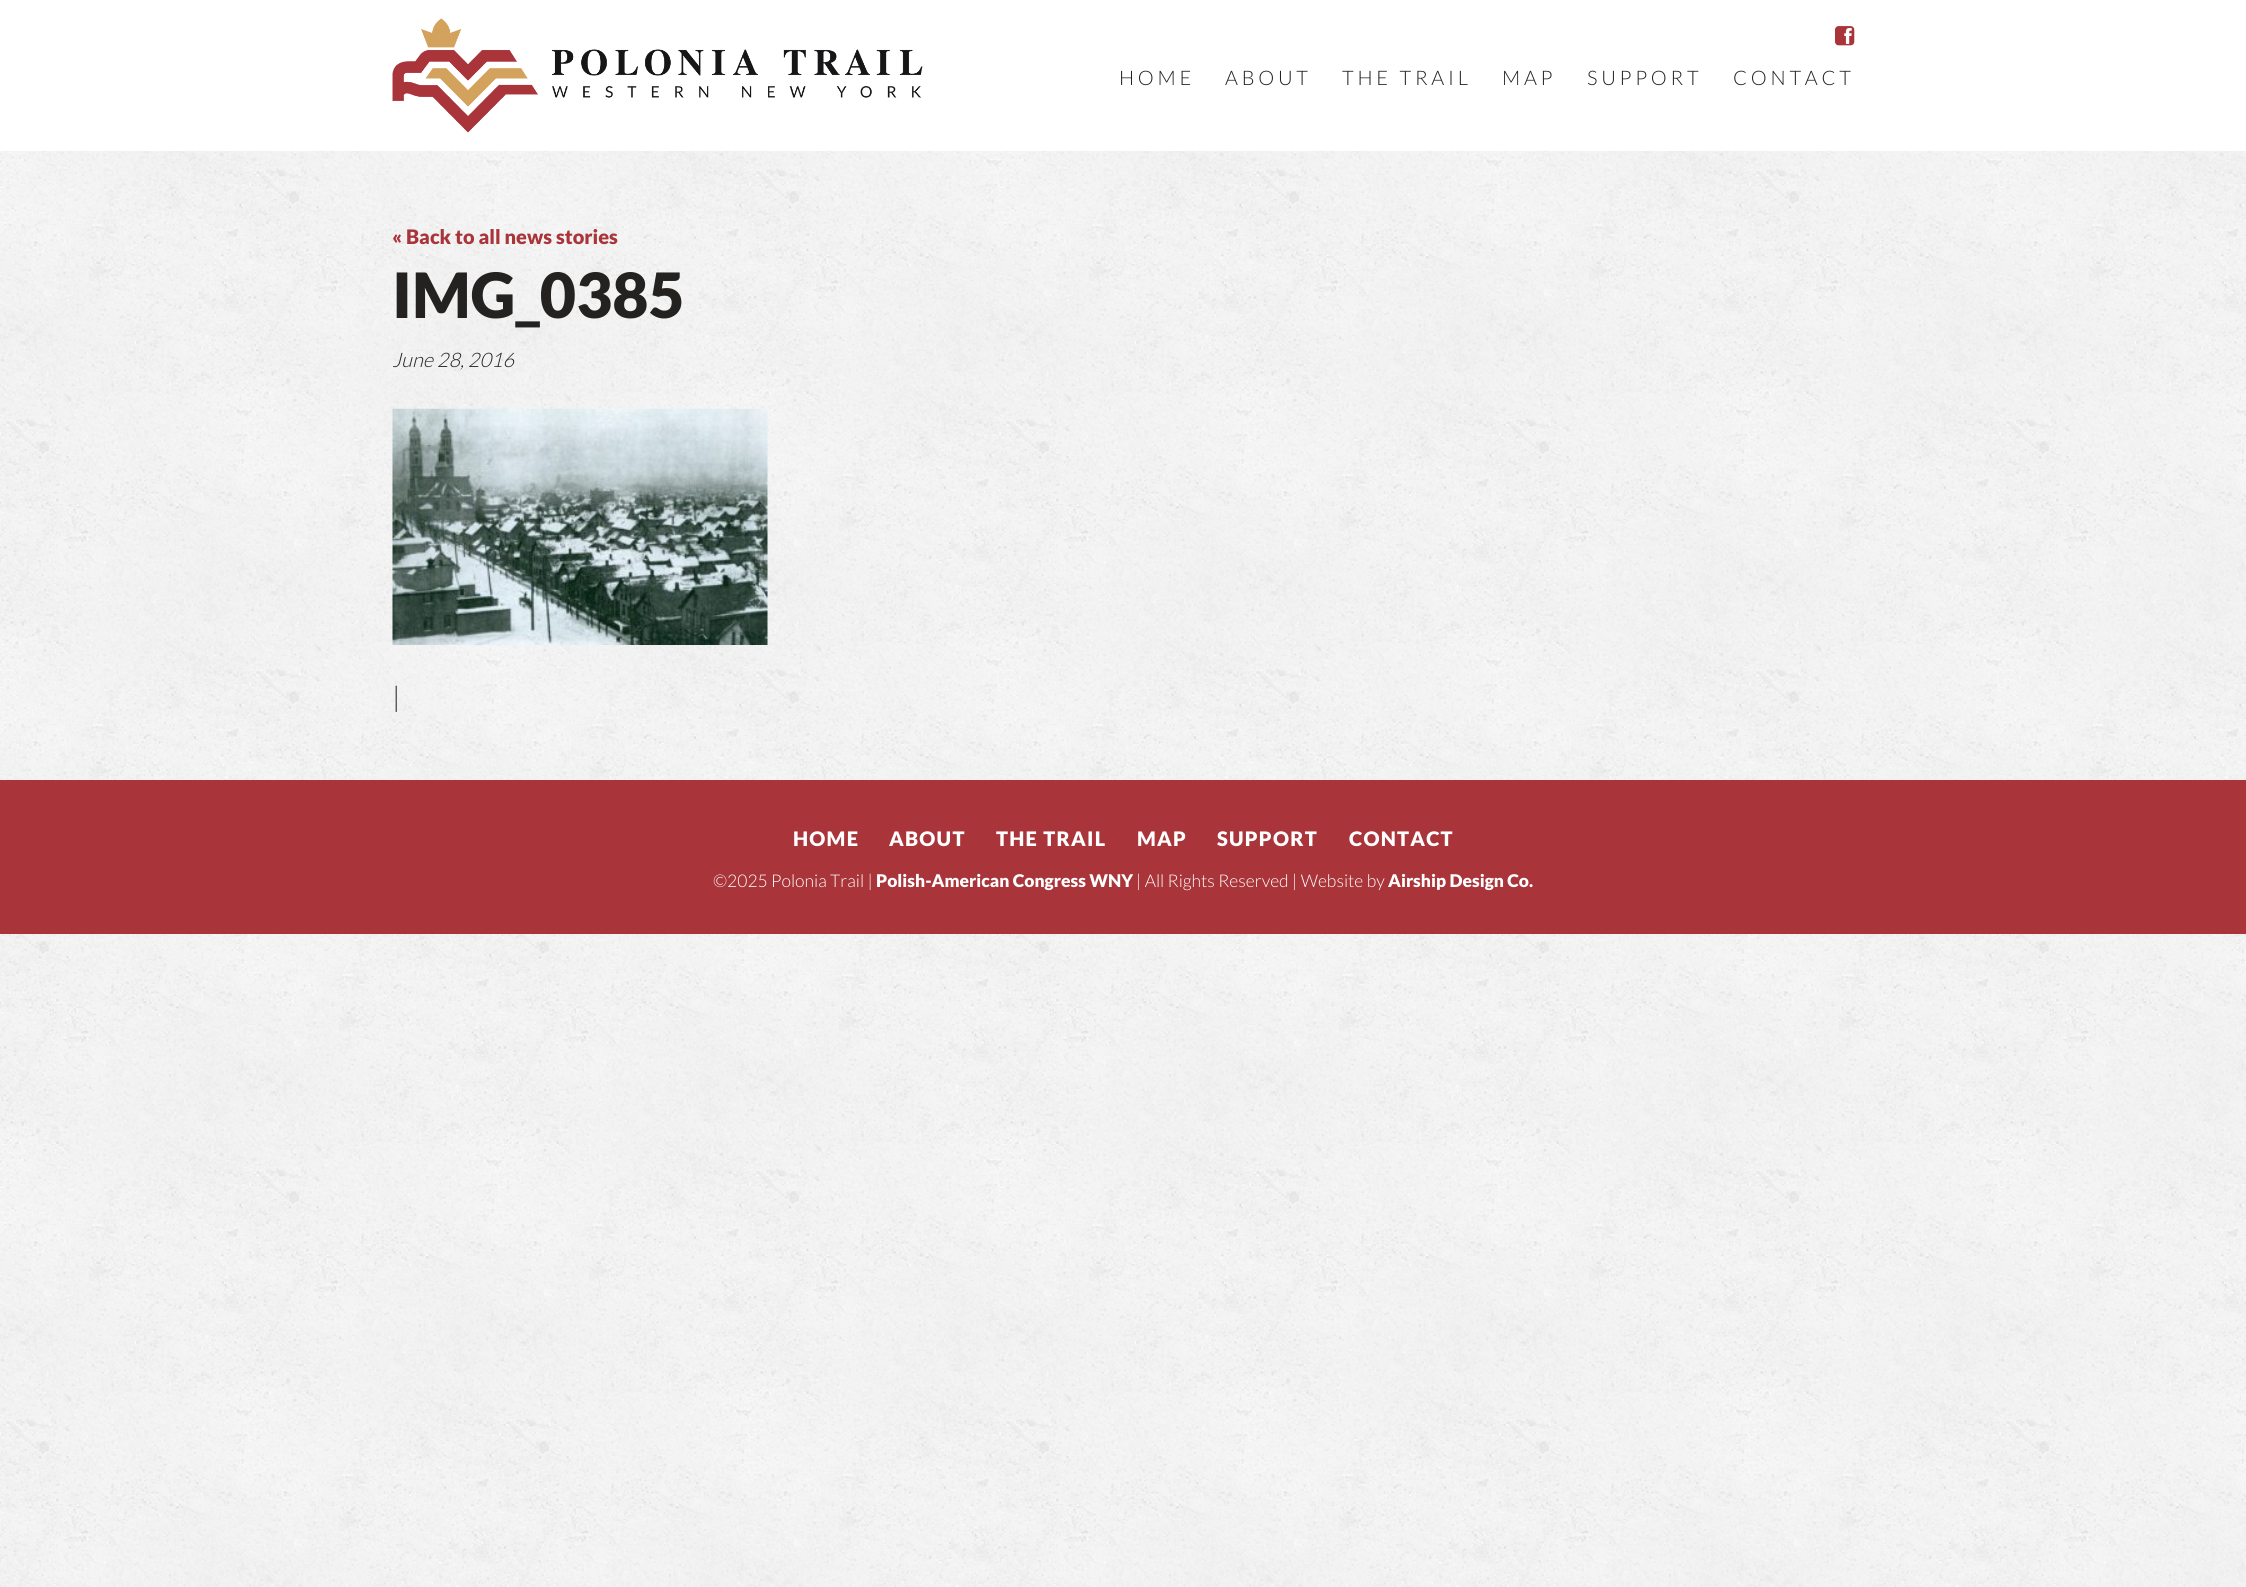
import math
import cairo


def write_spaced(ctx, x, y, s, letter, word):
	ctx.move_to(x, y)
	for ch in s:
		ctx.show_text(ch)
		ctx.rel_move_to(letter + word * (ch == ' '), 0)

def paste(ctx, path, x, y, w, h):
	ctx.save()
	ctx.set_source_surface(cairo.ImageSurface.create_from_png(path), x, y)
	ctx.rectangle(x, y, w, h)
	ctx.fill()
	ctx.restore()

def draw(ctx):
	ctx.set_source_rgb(1, 1, 1)
	ctx.paint()
	paste(ctx, 'media/1.png', 0, 151, 2246, 1436)
	paste(ctx, 'media/2.png', 392, 18, 531, 115)
	paste(ctx, 'media/3.png', 1835, 26, 20, 20)
	ctx.select_font_face('Lato Light')
	ctx.set_font_size(20)
	ctx.set_source_rgb(0.137, 0.133, 0.125)
	for x, y, s in [
		(1119, 85, 'HOME'),
		(1225, 85, 'ABOUT'),
		(1342, 85, 'THE TRAIL'),
		(1502, 85, 'MAP'),
		(1587, 85, 'SUPPORT'),
		(1733, 85, 'CONTACT'),
	]:
		write_spaced(ctx, x, y, s, 3.75, 0)
	ctx.select_font_face('Lato Black')
	ctx.set_source_rgb(0.663, 0.204, 0.224)
	ctx.move_to(392, 244)
	ctx.show_text('« Back to all news stories')
	ctx.set_font_size(62.5)
	ctx.set_source_rgb(0.137, 0.133, 0.125)
	ctx.move_to(392, 318)
	ctx.show_text('IMG_0385')
	ctx.select_font_face('Lato Light', cairo.FONT_SLANT_ITALIC)
	ctx.set_font_size(20)
	ctx.move_to(392, 367)
	ctx.show_text('June 28, 2016')
	paste(ctx, 'media/4.png', 392, 408, 376, 237)
	ctx.select_font_face('Lato Light')
	ctx.set_font_size(28)
	ctx.move_to(392, 707)
	ctx.show_text('|')
	ctx.set_source_rgb(0.663, 0.204, 0.224)
	ctx.rectangle(0, 780, 2246, 154)
	ctx.fill()
	ctx.select_font_face('Lato Black')
	ctx.set_font_size(20)
	ctx.set_source_rgb(1, 1, 1)
	for x, y, s in [
		(793, 846, 'HOME'),
		(889, 846, 'ABOUT'),
		(996, 846, 'THE TRAIL'),
		(1137, 846, 'MAP'),
		(1217, 846, 'SUPPORT'),
		(1349, 846, 'CONTACT'),
	]:
		write_spaced(ctx, x, y, s, 1.25, 0)
	ctx.select_font_face('Lato Light')
	ctx.set_font_size(17.5)
	ctx.move_to(713, 887)
	ctx.show_text('©2025 Polonia Trail |')
	ctx.select_font_face('Lato Black')
	ctx.move_to(876, 887)
	ctx.show_text('Polish-American Congress WNY')
	ctx.select_font_face('Lato Light')
	ctx.move_to(1136, 887)
	ctx.show_text('| All Rights Reserved | Website by')
	ctx.select_font_face('Lato Black')
	ctx.move_to(1388, 887)
	ctx.show_text('Airship Design Co.')


surface = cairo.ImageSurface(cairo.FORMAT_RGB24, 2246, 1587)
ctx = cairo.Context(surface)
options = cairo.FontOptions()
options.set_hint_metrics(cairo.HINT_METRICS_OFF)
options.set_hint_style(cairo.HINT_STYLE_NONE)
ctx.set_font_options(options)
ctx.set_miter_limit(4)
draw(ctx)
surface.write_to_png('image.png')
